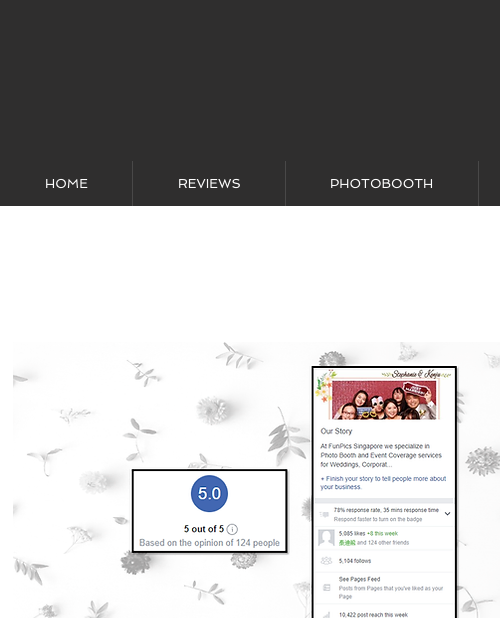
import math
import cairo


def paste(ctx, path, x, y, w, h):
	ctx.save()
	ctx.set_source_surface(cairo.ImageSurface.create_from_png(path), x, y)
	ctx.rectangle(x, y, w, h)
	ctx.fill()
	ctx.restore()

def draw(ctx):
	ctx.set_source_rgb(1, 1, 1)
	ctx.paint()
	ctx.set_source_rgb(0.184, 0.18, 0.18)
	ctx.rectangle(0, 0, 500, 206)
	ctx.fill()
	ctx.select_font_face('Spinnaker')
	ctx.set_font_size(13)
	ctx.set_source_rgb(1, 1, 1)
	ctx.move_to(45, 188)
	ctx.show_text('HOME')
	ctx.set_source_rgb(0.286, 0.282, 0.282)
	ctx.rectangle(132, 161, 1, 45)
	ctx.fill()
	ctx.set_source_rgb(1, 1, 1)
	ctx.move_to(178, 188)
	ctx.show_text('REVIEWS')
	ctx.set_source_rgb(0.286, 0.282, 0.282)
	ctx.rectangle(285, 161, 1, 45)
	ctx.fill()
	ctx.set_source_rgb(1, 1, 1)
	ctx.move_to(330, 188)
	ctx.show_text('PHOTOBOOTH')
	ctx.set_source_rgb(0.286, 0.282, 0.282)
	ctx.rectangle(478, 161, 1, 45)
	ctx.fill()
	paste(ctx, 'media/1.png', 13, 342, 487, 276)


surface = cairo.ImageSurface(cairo.FORMAT_RGB24, 500, 618)
ctx = cairo.Context(surface)
options = cairo.FontOptions()
options.set_hint_metrics(cairo.HINT_METRICS_OFF)
options.set_hint_style(cairo.HINT_STYLE_NONE)
ctx.set_font_options(options)
ctx.set_miter_limit(4)
draw(ctx)
surface.write_to_png('image.png')
